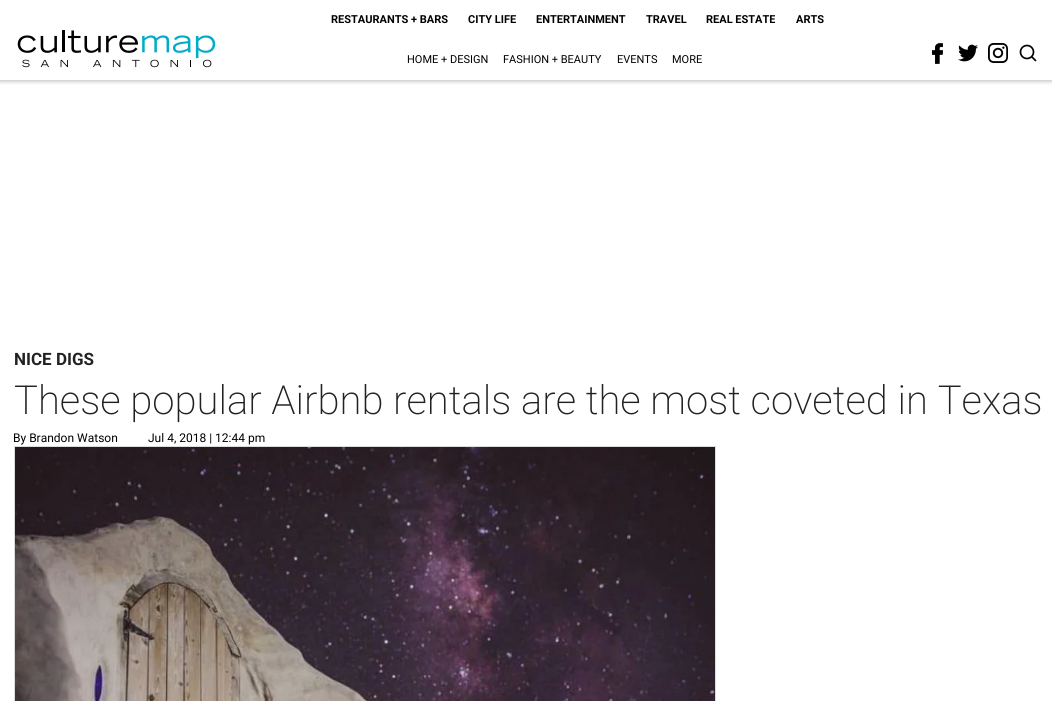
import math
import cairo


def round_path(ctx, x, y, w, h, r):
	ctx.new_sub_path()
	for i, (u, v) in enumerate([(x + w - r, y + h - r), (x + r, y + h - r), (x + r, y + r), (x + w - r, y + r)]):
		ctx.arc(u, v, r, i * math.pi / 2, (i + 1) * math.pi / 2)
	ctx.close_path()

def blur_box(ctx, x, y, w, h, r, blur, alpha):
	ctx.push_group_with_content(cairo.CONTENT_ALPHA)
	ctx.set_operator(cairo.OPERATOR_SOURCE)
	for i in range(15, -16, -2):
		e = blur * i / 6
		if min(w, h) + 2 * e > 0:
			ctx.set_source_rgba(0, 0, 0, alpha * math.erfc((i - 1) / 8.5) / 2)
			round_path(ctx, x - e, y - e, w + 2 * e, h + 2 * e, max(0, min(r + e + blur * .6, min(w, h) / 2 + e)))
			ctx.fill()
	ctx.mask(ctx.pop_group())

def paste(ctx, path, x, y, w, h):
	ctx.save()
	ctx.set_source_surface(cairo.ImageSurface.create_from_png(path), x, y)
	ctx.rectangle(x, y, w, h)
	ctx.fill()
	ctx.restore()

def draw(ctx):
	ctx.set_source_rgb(1, 1, 1)
	ctx.paint()
	ctx.save()
	ctx.rectangle(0, 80, 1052, 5)
	ctx.clip()
	ctx.set_source_rgb(0, 0, 0)
	blur_box(ctx, -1, -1, 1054, 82, 0, 2.5, 0.28)
	ctx.restore()
	paste(ctx, 'media/1.png', 17, 30, 199, 38)
	ctx.select_font_face('Roboto', cairo.FONT_SLANT_NORMAL, cairo.FONT_WEIGHT_BOLD)
	ctx.set_font_size(11)
	ctx.set_source_rgb(0, 0, 0)
	for x, y, s in [
		(331, 23, 'RESTAURANTS + BARS'),
		(468, 23, 'CITY LIFE'),
		(536, 23, 'ENTERTAINMENT'),
		(646, 23, 'TRAVEL'),
		(706, 23, 'REAL ESTATE'),
		(796, 23, 'ARTS'),
	]:
		ctx.move_to(x, y)
		ctx.show_text(s)
	ctx.select_font_face('Roboto')
	for x, y, s in [
		(407, 63, 'HOME + DESIGN'),
		(503, 63, 'FASHION + BEAUTY'),
		(617, 63, 'EVENTS'),
		(672, 63, 'MORE'),
	]:
		ctx.move_to(x, y)
		ctx.show_text(s)
	paste(ctx, 'media/2.png', 932, 43, 11, 21)
	paste(ctx, 'media/3.png', 958, 44, 20, 18)
	paste(ctx, 'media/4.png', 988, 43, 20, 20)
	ctx.arc(1027, 52, 6.5, 0, 2 * math.pi)
	ctx.set_line_width(1.7)
	ctx.stroke()
	ctx.new_path()
	ctx.move_to(1035.5, 60.5)
	ctx.line_to(1032, 57)
	ctx.set_line_cap(cairo.LINE_CAP_ROUND)
	ctx.set_line_join(cairo.LINE_JOIN_ROUND)
	ctx.stroke()
	ctx.select_font_face('Roboto', cairo.FONT_SLANT_NORMAL, cairo.FONT_WEIGHT_BOLD)
	ctx.set_font_size(17)
	ctx.set_source_rgb(0.133, 0.133, 0.133)
	ctx.move_to(14, 365)
	ctx.show_text('NICE DIGS')
	ctx.select_font_face('Roboto ExtraLight')
	ctx.set_font_size(40)
	ctx.move_to(14, 414)
	ctx.show_text('These popular Airbnb rentals are the most coveted in Texas')
	ctx.select_font_face('Roboto')
	ctx.set_font_size(12)
	ctx.set_source_rgb(0, 0, 0)
	ctx.move_to(13, 442)
	ctx.show_text('By Brandon Watson')
	ctx.move_to(148, 442)
	ctx.show_text('Jul 4, 2018 | 12:44 pm')
	ctx.rectangle(14.5, 446.5, 701, 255)
	ctx.set_source_rgb(0.863, 0.863, 0.863)
	ctx.set_line_width(1)
	ctx.set_line_cap(cairo.LINE_CAP_BUTT)
	ctx.set_line_join(cairo.LINE_JOIN_MITER)
	ctx.stroke()
	paste(ctx, 'media/5.png', 15, 447, 700, 254)


surface = cairo.ImageSurface(cairo.FORMAT_RGB24, 1052, 701)
ctx = cairo.Context(surface)
options = cairo.FontOptions()
options.set_hint_metrics(cairo.HINT_METRICS_OFF)
options.set_hint_style(cairo.HINT_STYLE_NONE)
ctx.set_font_options(options)
ctx.set_miter_limit(4)
draw(ctx)
surface.write_to_png('image.png')
